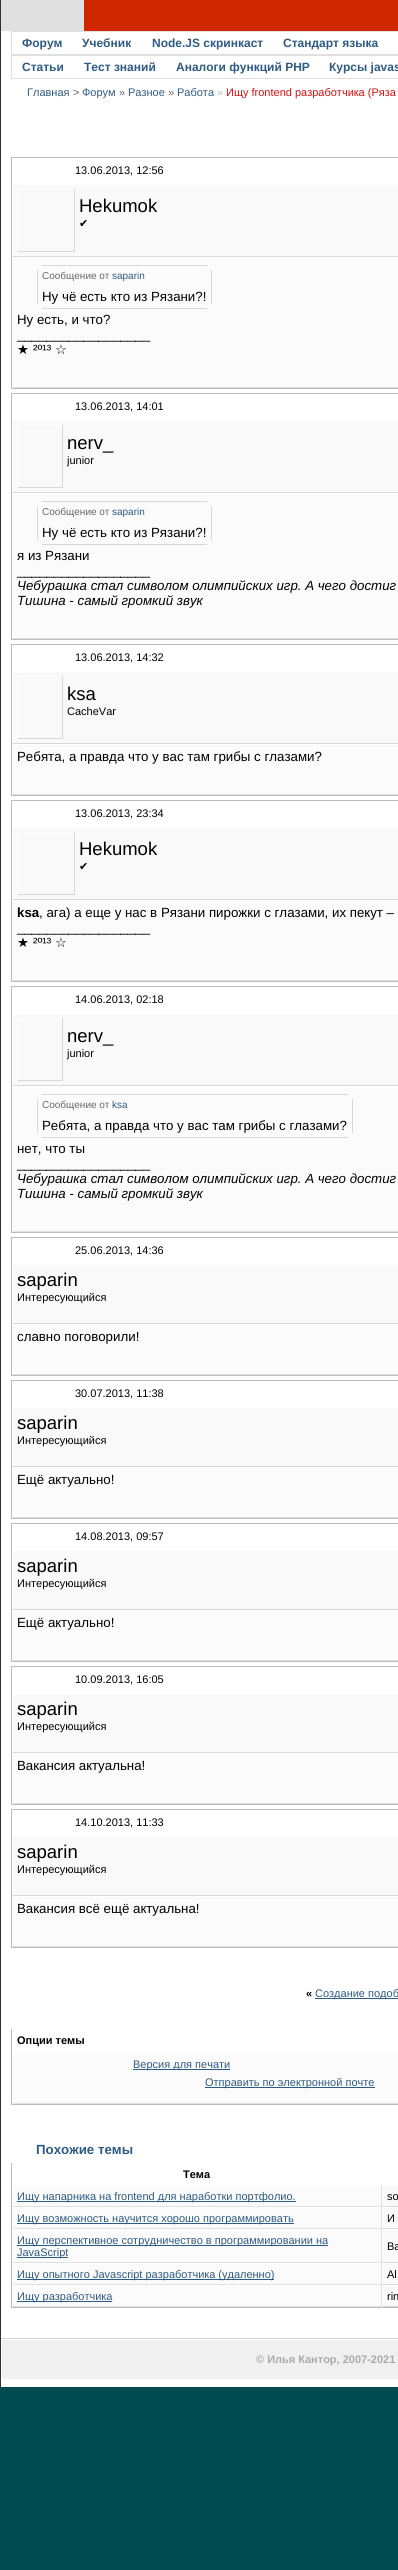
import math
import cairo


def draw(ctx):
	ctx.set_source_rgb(0, 0.294, 0.322)
	ctx.paint()
	ctx.set_source_rgb(1, 1, 1)
	ctx.rectangle(1, 31, 397, 2356)
	ctx.fill()
	ctx.set_source_rgb(0.2, 0.2, 0.2)
	ctx.rectangle(0, 0, 1, 2387)
	ctx.fill()
	ctx.set_source_rgb(0.878, 0.878, 0.878)
	ctx.rectangle(1, 0, 83, 31)
	ctx.fill()
	ctx.set_source_rgb(0.816, 0.153, 0)
	ctx.rectangle(84, 0, 314, 31)
	ctx.fill()
	ctx.rectangle(11.5, 31.5, 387, 23)
	ctx.set_source_rgb(0.878, 0.878, 0.878)
	ctx.set_line_width(1)
	ctx.stroke()
	ctx.select_font_face('Liberation Sans', cairo.FONT_SLANT_NORMAL, cairo.FONT_WEIGHT_BOLD)
	ctx.set_font_size(12)
	ctx.set_source_rgb(0.18, 0.357, 0.51)
	for x, y, s in [
		(22, 47, 'Форум'),
		(82, 47, 'Учебник'),
		(152, 47, 'Node.JS скринкаст'),
		(283, 47, 'Стандарт языка'),
	]:
		ctx.move_to(x, y)
		ctx.show_text(s)
	ctx.rectangle(11.5, 55.5, 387, 23)
	ctx.set_source_rgb(0.878, 0.878, 0.878)
	ctx.stroke()
	ctx.set_source_rgb(0.18, 0.357, 0.51)
	for x, y, s in [
		(22, 71, 'Статьи'),
		(84, 71, 'Тест знаний'),
		(176, 71, 'Аналоги функций PHP'),
		(329, 71, 'Курсы javas'),
	]:
		ctx.move_to(x, y)
		ctx.show_text(s)
	ctx.select_font_face('Liberation Sans')
	ctx.set_font_size(11)
	ctx.move_to(27, 96)
	ctx.show_text('Главная')
	ctx.set_source_rgb(0.4, 0.4, 0.4)
	ctx.move_to(73, 96)
	ctx.show_text('>')
	ctx.set_source_rgb(0.18, 0.357, 0.51)
	ctx.move_to(82, 96)
	ctx.show_text('Форум')
	ctx.set_source_rgb(0.4, 0.4, 0.4)
	ctx.move_to(119, 96)
	ctx.show_text('»')
	ctx.set_source_rgb(0.18, 0.357, 0.51)
	ctx.move_to(128, 96)
	ctx.show_text('Разное')
	ctx.set_source_rgb(0.4, 0.4, 0.4)
	ctx.move_to(168, 96)
	ctx.show_text('»')
	ctx.set_source_rgb(0.18, 0.357, 0.51)
	ctx.move_to(177, 96)
	ctx.show_text('Работа')
	ctx.set_source_rgb(0.753, 0.753, 0.753)
	ctx.move_to(217, 96)
	ctx.show_text('»')
	ctx.set_source_rgb(0.82, 0.063, 0.063)
	ctx.move_to(226, 96)
	ctx.show_text('Ищу frontend разработчика (Ряза')
	ctx.rectangle(11.5, 157.5, 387, 231)
	ctx.set_source_rgb(0.733, 0.733, 0.733)
	ctx.stroke()
	ctx.set_source_rgb(0, 0, 0)
	ctx.move_to(75, 174)
	ctx.show_text('13.06.2013, 12:56')
	ctx.set_source_rgb(0.973, 0.973, 0.973)
	ctx.rectangle(13, 185, 385, 71)
	ctx.fill()
	ctx.set_source_rgb(0.843, 0.843, 0.843)
	ctx.rectangle(12, 256, 386, 1)
	ctx.fill()
	ctx.set_source_rgb(1, 1, 1)
	ctx.rectangle(12, 256, 1, 1)
	ctx.rectangle(17, 189, 58, 1)
	ctx.fill()
	ctx.set_source_rgb(0.843, 0.843, 0.843)
	ctx.rectangle(74, 189, 1, 63)
	ctx.rectangle(17, 251, 58, 1)
	ctx.fill()
	ctx.set_source_rgb(1, 1, 1)
	ctx.rectangle(17, 189, 1, 63)
	ctx.fill()
	ctx.set_font_size(18.5)
	ctx.set_source_rgb(0, 0, 0)
	ctx.move_to(79, 212)
	ctx.show_text('Hekumok')
	ctx.select_font_face('DejaVu Sans')
	ctx.set_font_size(11)
	ctx.move_to(79, 227)
	ctx.show_text('✔')
	ctx.set_source_rgb(0.984, 0.984, 0.984)
	ctx.rectangle(13, 258, 385, 129)
	ctx.fill()
	ctx.set_source_rgb(0.878, 0.878, 0.878)
	ctx.rectangle(12, 387, 386, 1)
	ctx.fill()
	ctx.set_source_rgb(1, 1, 1)
	ctx.rectangle(12, 387, 1, 1)
	ctx.fill()
	ctx.set_source_rgb(0.847, 0.847, 0.847)
	ctx.rectangle(42, 265, 165, 1)
	ctx.rectangle(211, 270, 1, 34)
	ctx.rectangle(37, 270, 1, 34)
	ctx.fill()
	ctx.select_font_face('Liberation Sans')
	ctx.set_font_size(10)
	ctx.set_source_rgb(0.4, 0.4, 0.4)
	ctx.move_to(42, 279)
	ctx.show_text('Сообщение от')
	ctx.set_source_rgb(0.18, 0.357, 0.51)
	ctx.move_to(112, 279)
	ctx.show_text('saparin')
	ctx.set_font_size(13.3)
	ctx.set_source_rgb(0, 0, 0)
	ctx.move_to(42, 301)
	ctx.show_text('Ну чё есть кто из Рязани?!')
	ctx.set_source_rgb(0.847, 0.847, 0.847)
	ctx.rectangle(42, 308, 165, 1)
	ctx.fill()
	ctx.set_source_rgb(0, 0, 0)
	ctx.move_to(17, 324)
	ctx.show_text('Ну есть, и что?')
	ctx.move_to(17, 339)
	ctx.show_text('__________________')
	ctx.select_font_face('DejaVu Sans')
	ctx.move_to(17, 354)
	ctx.show_text('★')
	ctx.select_font_face('Liberation Sans')
	ctx.move_to(33, 354)
	ctx.show_text('²º¹³')
	ctx.select_font_face('DejaVu Sans')
	ctx.move_to(55, 354)
	ctx.show_text('☆')
	ctx.rectangle(11.5, 393.5, 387, 246)
	ctx.set_source_rgb(0.733, 0.733, 0.733)
	ctx.stroke()
	ctx.select_font_face('Liberation Sans')
	ctx.set_font_size(11)
	ctx.set_source_rgb(0, 0, 0)
	ctx.move_to(75, 410)
	ctx.show_text('13.06.2013, 14:01')
	ctx.set_source_rgb(0.973, 0.973, 0.973)
	ctx.rectangle(13, 421, 385, 71)
	ctx.fill()
	ctx.set_source_rgb(0.843, 0.843, 0.843)
	ctx.rectangle(12, 492, 386, 1)
	ctx.fill()
	ctx.set_source_rgb(1, 1, 1)
	ctx.rectangle(12, 492, 1, 1)
	ctx.rectangle(17, 425, 46, 1)
	ctx.fill()
	ctx.set_source_rgb(0.843, 0.843, 0.843)
	ctx.rectangle(62, 425, 1, 63)
	ctx.rectangle(17, 487, 46, 1)
	ctx.fill()
	ctx.set_source_rgb(1, 1, 1)
	ctx.rectangle(17, 425, 1, 63)
	ctx.fill()
	ctx.set_font_size(18.5)
	ctx.set_source_rgb(0, 0, 0)
	ctx.move_to(67, 449)
	ctx.show_text('nerv_')
	ctx.set_font_size(11)
	ctx.move_to(67, 464)
	ctx.show_text('junior')
	ctx.set_source_rgb(0.984, 0.984, 0.984)
	ctx.rectangle(13, 494, 385, 144)
	ctx.fill()
	ctx.set_source_rgb(0.878, 0.878, 0.878)
	ctx.rectangle(12, 638, 386, 1)
	ctx.fill()
	ctx.set_source_rgb(1, 1, 1)
	ctx.rectangle(12, 638, 1, 1)
	ctx.fill()
	ctx.set_source_rgb(0.847, 0.847, 0.847)
	ctx.rectangle(42, 501, 165, 1)
	ctx.rectangle(211, 506, 1, 34)
	ctx.rectangle(37, 506, 1, 34)
	ctx.fill()
	ctx.set_font_size(10)
	ctx.set_source_rgb(0.4, 0.4, 0.4)
	ctx.move_to(42, 515)
	ctx.show_text('Сообщение от')
	ctx.set_source_rgb(0.18, 0.357, 0.51)
	ctx.move_to(112, 515)
	ctx.show_text('saparin')
	ctx.set_font_size(13.3)
	ctx.set_source_rgb(0, 0, 0)
	ctx.move_to(42, 537)
	ctx.show_text('Ну чё есть кто из Рязани?!')
	ctx.set_source_rgb(0.847, 0.847, 0.847)
	ctx.rectangle(42, 544, 165, 1)
	ctx.fill()
	ctx.set_source_rgb(0, 0, 0)
	ctx.move_to(17, 560)
	ctx.show_text('я из Рязани')
	ctx.move_to(17, 575)
	ctx.show_text('__________________')
	ctx.select_font_face('Liberation Sans', cairo.FONT_SLANT_ITALIC)
	ctx.move_to(17, 590)
	ctx.show_text('Чебурашка стал символом олимпийских игр. А чего достиг')
	ctx.move_to(17, 605)
	ctx.show_text('Тишина - самый громкий звук')
	ctx.rectangle(11.5, 644.5, 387, 151)
	ctx.set_source_rgb(0.733, 0.733, 0.733)
	ctx.stroke()
	ctx.select_font_face('Liberation Sans')
	ctx.set_font_size(11)
	ctx.set_source_rgb(0, 0, 0)
	ctx.move_to(75, 661)
	ctx.show_text('13.06.2013, 14:32')
	ctx.set_source_rgb(0.973, 0.973, 0.973)
	ctx.rectangle(13, 672, 385, 71)
	ctx.fill()
	ctx.set_source_rgb(0.843, 0.843, 0.843)
	ctx.rectangle(12, 743, 386, 1)
	ctx.fill()
	ctx.set_source_rgb(1, 1, 1)
	ctx.rectangle(12, 743, 1, 1)
	ctx.rectangle(17, 676, 46, 1)
	ctx.fill()
	ctx.set_source_rgb(0.843, 0.843, 0.843)
	ctx.rectangle(62, 676, 1, 63)
	ctx.rectangle(17, 738, 46, 1)
	ctx.fill()
	ctx.set_source_rgb(1, 1, 1)
	ctx.rectangle(17, 676, 1, 63)
	ctx.fill()
	ctx.set_font_size(18.5)
	ctx.set_source_rgb(0, 0, 0)
	ctx.move_to(67, 700)
	ctx.show_text('ksa')
	ctx.set_font_size(11)
	ctx.move_to(67, 715)
	ctx.show_text('CacheVar')
	ctx.set_source_rgb(0.984, 0.984, 0.984)
	ctx.rectangle(13, 745, 385, 49)
	ctx.fill()
	ctx.set_source_rgb(0.878, 0.878, 0.878)
	ctx.rectangle(12, 794, 386, 1)
	ctx.fill()
	ctx.set_source_rgb(1, 1, 1)
	ctx.rectangle(12, 794, 1, 1)
	ctx.fill()
	ctx.set_font_size(13.3)
	ctx.set_source_rgb(0, 0, 0)
	ctx.move_to(17, 761)
	ctx.show_text('Ребята, а правда что у вас там грибы с глазами?')
	ctx.rectangle(11.5, 800.5, 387, 181)
	ctx.set_source_rgb(0.733, 0.733, 0.733)
	ctx.stroke()
	ctx.set_font_size(11)
	ctx.set_source_rgb(0, 0, 0)
	ctx.move_to(75, 817)
	ctx.show_text('13.06.2013, 23:34')
	ctx.set_source_rgb(0.973, 0.973, 0.973)
	ctx.rectangle(13, 828, 385, 71)
	ctx.fill()
	ctx.set_source_rgb(0.843, 0.843, 0.843)
	ctx.rectangle(12, 899, 386, 1)
	ctx.fill()
	ctx.set_source_rgb(1, 1, 1)
	ctx.rectangle(12, 899, 1, 1)
	ctx.rectangle(17, 832, 58, 1)
	ctx.fill()
	ctx.set_source_rgb(0.843, 0.843, 0.843)
	ctx.rectangle(74, 832, 1, 63)
	ctx.rectangle(17, 894, 58, 1)
	ctx.fill()
	ctx.set_source_rgb(1, 1, 1)
	ctx.rectangle(17, 832, 1, 63)
	ctx.fill()
	ctx.set_font_size(18.5)
	ctx.set_source_rgb(0, 0, 0)
	ctx.move_to(79, 855)
	ctx.show_text('Hekumok')
	ctx.select_font_face('DejaVu Sans')
	ctx.set_font_size(11)
	ctx.move_to(79, 870)
	ctx.show_text('✔')
	ctx.set_source_rgb(0.984, 0.984, 0.984)
	ctx.rectangle(13, 901, 385, 79)
	ctx.fill()
	ctx.set_source_rgb(0.878, 0.878, 0.878)
	ctx.rectangle(12, 980, 386, 1)
	ctx.fill()
	ctx.set_source_rgb(1, 1, 1)
	ctx.rectangle(12, 980, 1, 1)
	ctx.fill()
	ctx.select_font_face('Liberation Sans', cairo.FONT_SLANT_NORMAL, cairo.FONT_WEIGHT_BOLD)
	ctx.set_font_size(13.3)
	ctx.set_source_rgb(0, 0, 0)
	ctx.move_to(17, 917)
	ctx.show_text('ksa')
	ctx.select_font_face('Liberation Sans')
	ctx.move_to(39, 917)
	ctx.show_text(', ага) а еще у нас в Рязани пирожки с глазами, их пекут –')
	ctx.move_to(17, 932)
	ctx.show_text('__________________')
	ctx.select_font_face('DejaVu Sans')
	ctx.move_to(17, 947)
	ctx.show_text('★')
	ctx.select_font_face('Liberation Sans')
	ctx.move_to(33, 947)
	ctx.show_text('²º¹³')
	ctx.select_font_face('DejaVu Sans')
	ctx.move_to(55, 947)
	ctx.show_text('☆')
	ctx.rectangle(11.5, 986.5, 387, 246)
	ctx.set_source_rgb(0.733, 0.733, 0.733)
	ctx.stroke()
	ctx.select_font_face('Liberation Sans')
	ctx.set_font_size(11)
	ctx.set_source_rgb(0, 0, 0)
	ctx.move_to(75, 1003)
	ctx.show_text('14.06.2013, 02:18')
	ctx.set_source_rgb(0.973, 0.973, 0.973)
	ctx.rectangle(13, 1014, 385, 71)
	ctx.fill()
	ctx.set_source_rgb(0.843, 0.843, 0.843)
	ctx.rectangle(12, 1085, 386, 1)
	ctx.fill()
	ctx.set_source_rgb(1, 1, 1)
	ctx.rectangle(12, 1085, 1, 1)
	ctx.rectangle(17, 1018, 46, 1)
	ctx.fill()
	ctx.set_source_rgb(0.843, 0.843, 0.843)
	ctx.rectangle(62, 1018, 1, 63)
	ctx.rectangle(17, 1080, 46, 1)
	ctx.fill()
	ctx.set_source_rgb(1, 1, 1)
	ctx.rectangle(17, 1018, 1, 63)
	ctx.fill()
	ctx.set_font_size(18.5)
	ctx.set_source_rgb(0, 0, 0)
	ctx.move_to(67, 1042)
	ctx.show_text('nerv_')
	ctx.set_font_size(11)
	ctx.move_to(67, 1057)
	ctx.show_text('junior')
	ctx.set_source_rgb(0.984, 0.984, 0.984)
	ctx.rectangle(13, 1087, 385, 144)
	ctx.fill()
	ctx.set_source_rgb(0.878, 0.878, 0.878)
	ctx.rectangle(12, 1231, 386, 1)
	ctx.fill()
	ctx.set_source_rgb(1, 1, 1)
	ctx.rectangle(12, 1231, 1, 1)
	ctx.fill()
	ctx.set_source_rgb(0.847, 0.847, 0.847)
	ctx.rectangle(42, 1094, 306, 1)
	ctx.rectangle(352, 1099, 1, 34)
	ctx.rectangle(37, 1099, 1, 34)
	ctx.fill()
	ctx.set_font_size(10)
	ctx.set_source_rgb(0.4, 0.4, 0.4)
	ctx.move_to(42, 1108)
	ctx.show_text('Сообщение от')
	ctx.set_source_rgb(0.18, 0.357, 0.51)
	ctx.move_to(112, 1108)
	ctx.show_text('ksa')
	ctx.set_font_size(13.3)
	ctx.set_source_rgb(0, 0, 0)
	ctx.move_to(42, 1130)
	ctx.show_text('Ребята, а правда что у вас там грибы с глазами?')
	ctx.set_source_rgb(0.847, 0.847, 0.847)
	ctx.rectangle(42, 1137, 306, 1)
	ctx.fill()
	ctx.set_source_rgb(0, 0, 0)
	ctx.move_to(17, 1153)
	ctx.show_text('нет, что ты')
	ctx.move_to(17, 1168)
	ctx.show_text('__________________')
	ctx.select_font_face('Liberation Sans', cairo.FONT_SLANT_ITALIC)
	ctx.move_to(17, 1183)
	ctx.show_text('Чебурашка стал символом олимпийских игр. А чего достиг')
	ctx.move_to(17, 1198)
	ctx.show_text('Тишина - самый громкий звук')
	ctx.rectangle(11.5, 1237.5, 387, 138)
	ctx.set_source_rgb(0.733, 0.733, 0.733)
	ctx.stroke()
	ctx.select_font_face('Liberation Sans')
	ctx.set_font_size(11)
	ctx.set_source_rgb(0, 0, 0)
	ctx.move_to(75, 1254)
	ctx.show_text('25.06.2013, 14:36')
	ctx.set_source_rgb(0.973, 0.973, 0.973)
	ctx.rectangle(13, 1265, 385, 58)
	ctx.fill()
	ctx.set_source_rgb(0.843, 0.843, 0.843)
	ctx.rectangle(12, 1323, 386, 1)
	ctx.fill()
	ctx.set_source_rgb(1, 1, 1)
	ctx.rectangle(12, 1323, 1, 1)
	ctx.fill()
	ctx.set_font_size(18.5)
	ctx.set_source_rgb(0, 0, 0)
	ctx.move_to(17, 1286)
	ctx.show_text('saparin')
	ctx.set_font_size(11)
	ctx.move_to(17, 1301)
	ctx.show_text('Интересующийся')
	ctx.set_source_rgb(0.984, 0.984, 0.984)
	ctx.rectangle(13, 1325, 385, 49)
	ctx.fill()
	ctx.set_source_rgb(0.878, 0.878, 0.878)
	ctx.rectangle(12, 1374, 386, 1)
	ctx.fill()
	ctx.set_source_rgb(1, 1, 1)
	ctx.rectangle(12, 1374, 1, 1)
	ctx.fill()
	ctx.set_font_size(13.3)
	ctx.set_source_rgb(0, 0, 0)
	ctx.move_to(17, 1341)
	ctx.show_text('славно поговорили!')
	ctx.rectangle(11.5, 1380.5, 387, 138)
	ctx.set_source_rgb(0.733, 0.733, 0.733)
	ctx.stroke()
	ctx.set_font_size(11)
	ctx.set_source_rgb(0, 0, 0)
	ctx.move_to(75, 1397)
	ctx.show_text('30.07.2013, 11:38')
	ctx.set_source_rgb(0.973, 0.973, 0.973)
	ctx.rectangle(13, 1408, 385, 58)
	ctx.fill()
	ctx.set_source_rgb(0.843, 0.843, 0.843)
	ctx.rectangle(12, 1466, 386, 1)
	ctx.fill()
	ctx.set_source_rgb(1, 1, 1)
	ctx.rectangle(12, 1466, 1, 1)
	ctx.fill()
	ctx.set_font_size(18.5)
	ctx.set_source_rgb(0, 0, 0)
	ctx.move_to(17, 1429)
	ctx.show_text('saparin')
	ctx.set_font_size(11)
	ctx.move_to(17, 1444)
	ctx.show_text('Интересующийся')
	ctx.set_source_rgb(0.984, 0.984, 0.984)
	ctx.rectangle(13, 1468, 385, 49)
	ctx.fill()
	ctx.set_source_rgb(0.878, 0.878, 0.878)
	ctx.rectangle(12, 1517, 386, 1)
	ctx.fill()
	ctx.set_source_rgb(1, 1, 1)
	ctx.rectangle(12, 1517, 1, 1)
	ctx.fill()
	ctx.set_font_size(13.3)
	ctx.set_source_rgb(0, 0, 0)
	ctx.move_to(17, 1484)
	ctx.show_text('Ещё актуально!')
	ctx.rectangle(11.5, 1523.5, 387, 138)
	ctx.set_source_rgb(0.733, 0.733, 0.733)
	ctx.stroke()
	ctx.set_font_size(11)
	ctx.set_source_rgb(0, 0, 0)
	ctx.move_to(75, 1540)
	ctx.show_text('14.08.2013, 09:57')
	ctx.set_source_rgb(0.973, 0.973, 0.973)
	ctx.rectangle(13, 1551, 385, 58)
	ctx.fill()
	ctx.set_source_rgb(0.843, 0.843, 0.843)
	ctx.rectangle(12, 1609, 386, 1)
	ctx.fill()
	ctx.set_source_rgb(1, 1, 1)
	ctx.rectangle(12, 1609, 1, 1)
	ctx.fill()
	ctx.set_font_size(18.5)
	ctx.set_source_rgb(0, 0, 0)
	ctx.move_to(17, 1572)
	ctx.show_text('saparin')
	ctx.set_font_size(11)
	ctx.move_to(17, 1587)
	ctx.show_text('Интересующийся')
	ctx.set_source_rgb(0.984, 0.984, 0.984)
	ctx.rectangle(13, 1611, 385, 49)
	ctx.fill()
	ctx.set_source_rgb(0.878, 0.878, 0.878)
	ctx.rectangle(12, 1660, 386, 1)
	ctx.fill()
	ctx.set_source_rgb(1, 1, 1)
	ctx.rectangle(12, 1660, 1, 1)
	ctx.fill()
	ctx.set_font_size(13.3)
	ctx.set_source_rgb(0, 0, 0)
	ctx.move_to(17, 1627)
	ctx.show_text('Ещё актуально!')
	ctx.rectangle(11.5, 1666.5, 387, 138)
	ctx.set_source_rgb(0.733, 0.733, 0.733)
	ctx.stroke()
	ctx.set_font_size(11)
	ctx.set_source_rgb(0, 0, 0)
	ctx.move_to(75, 1683)
	ctx.show_text('10.09.2013, 16:05')
	ctx.set_source_rgb(0.973, 0.973, 0.973)
	ctx.rectangle(13, 1694, 385, 58)
	ctx.fill()
	ctx.set_source_rgb(0.843, 0.843, 0.843)
	ctx.rectangle(12, 1752, 386, 1)
	ctx.fill()
	ctx.set_source_rgb(1, 1, 1)
	ctx.rectangle(12, 1752, 1, 1)
	ctx.fill()
	ctx.set_font_size(18.5)
	ctx.set_source_rgb(0, 0, 0)
	ctx.move_to(17, 1715)
	ctx.show_text('saparin')
	ctx.set_font_size(11)
	ctx.move_to(17, 1730)
	ctx.show_text('Интересующийся')
	ctx.set_source_rgb(0.984, 0.984, 0.984)
	ctx.rectangle(13, 1754, 385, 49)
	ctx.fill()
	ctx.set_source_rgb(0.878, 0.878, 0.878)
	ctx.rectangle(12, 1803, 386, 1)
	ctx.fill()
	ctx.set_source_rgb(1, 1, 1)
	ctx.rectangle(12, 1803, 1, 1)
	ctx.fill()
	ctx.set_font_size(13.3)
	ctx.set_source_rgb(0, 0, 0)
	ctx.move_to(17, 1770)
	ctx.show_text('Вакансия актуальна!')
	ctx.rectangle(11.5, 1809.5, 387, 138)
	ctx.set_source_rgb(0.733, 0.733, 0.733)
	ctx.stroke()
	ctx.set_font_size(11)
	ctx.set_source_rgb(0, 0, 0)
	ctx.move_to(75, 1826)
	ctx.show_text('14.10.2013, 11:33')
	ctx.set_source_rgb(0.973, 0.973, 0.973)
	ctx.rectangle(13, 1837, 385, 58)
	ctx.fill()
	ctx.set_source_rgb(0.843, 0.843, 0.843)
	ctx.rectangle(12, 1895, 386, 1)
	ctx.fill()
	ctx.set_source_rgb(1, 1, 1)
	ctx.rectangle(12, 1895, 1, 1)
	ctx.fill()
	ctx.set_font_size(18.5)
	ctx.set_source_rgb(0, 0, 0)
	ctx.move_to(17, 1858)
	ctx.show_text('saparin')
	ctx.set_font_size(11)
	ctx.move_to(17, 1873)
	ctx.show_text('Интересующийся')
	ctx.set_source_rgb(0.984, 0.984, 0.984)
	ctx.rectangle(13, 1897, 385, 49)
	ctx.fill()
	ctx.set_source_rgb(0.878, 0.878, 0.878)
	ctx.rectangle(12, 1946, 386, 1)
	ctx.fill()
	ctx.set_source_rgb(1, 1, 1)
	ctx.rectangle(12, 1946, 1, 1)
	ctx.fill()
	ctx.set_font_size(13.3)
	ctx.set_source_rgb(0, 0, 0)
	ctx.move_to(17, 1913)
	ctx.show_text('Вакансия всё ещё актуальна!')
	ctx.select_font_face('Liberation Sans', cairo.FONT_SLANT_NORMAL, cairo.FONT_WEIGHT_BOLD)
	ctx.set_font_size(11)
	ctx.move_to(306, 1997)
	ctx.show_text('«')
	ctx.set_source_rgb(0.18, 0.357, 0.51)
	ctx.rectangle(315, 1998, 83, 1)
	ctx.fill()
	ctx.select_font_face('Liberation Sans')
	ctx.move_to(315, 1997)
	ctx.show_text('Создание подоб')
	ctx.set_source_rgb(0.733, 0.733, 0.733)
	ctx.rectangle(11, 2104, 387, 1)
	ctx.fill()
	ctx.rectangle(11, 2029, 1, 76)
	ctx.fill()
	ctx.select_font_face('Liberation Sans', cairo.FONT_SLANT_NORMAL, cairo.FONT_WEIGHT_BOLD)
	ctx.set_source_rgb(0, 0, 0)
	ctx.move_to(17, 2044)
	ctx.show_text('Опции темы')
	ctx.set_source_rgb(0.984, 0.984, 0.984)
	ctx.rectangle(13, 2052, 385, 51)
	ctx.fill()
	ctx.set_source_rgb(0.878, 0.878, 0.878)
	ctx.rectangle(12, 2103, 386, 1)
	ctx.fill()
	ctx.set_source_rgb(1, 1, 1)
	ctx.rectangle(12, 2103, 1, 1)
	ctx.fill()
	ctx.set_source_rgb(0.18, 0.357, 0.51)
	ctx.rectangle(133, 2069, 97, 1)
	ctx.fill()
	ctx.select_font_face('Liberation Sans')
	ctx.move_to(133, 2068)
	ctx.show_text('Версия для печати')
	ctx.rectangle(205, 2087, 170, 1)
	ctx.fill()
	ctx.move_to(205, 2086)
	ctx.show_text('Отправить по электронной почте')
	ctx.select_font_face('Liberation Sans', cairo.FONT_SLANT_NORMAL, cairo.FONT_WEIGHT_BOLD)
	ctx.set_font_size(13.3)
	ctx.move_to(36, 2154)
	ctx.show_text('Похожие темы')
	ctx.set_source_rgb(0.733, 0.733, 0.733)
	ctx.rectangle(11, 2307, 387, 1)
	ctx.fill()
	ctx.rectangle(11, 2163, 1, 145)
	ctx.fill()
	ctx.set_font_size(11)
	ctx.set_source_rgb(0, 0, 0)
	ctx.move_to(183, 2178)
	ctx.show_text('Тема')
	ctx.set_source_rgb(0.984, 0.984, 0.984)
	ctx.rectangle(13, 2186, 368, 20)
	ctx.fill()
	ctx.set_source_rgb(0.878, 0.878, 0.878)
	ctx.rectangle(381, 2185, 1, 122)
	ctx.rectangle(12, 2206, 370, 1)
	ctx.fill()
	ctx.set_source_rgb(1, 1, 1)
	ctx.rectangle(12, 2206, 1, 1)
	ctx.fill()
	ctx.set_source_rgb(0.18, 0.357, 0.51)
	ctx.rectangle(17, 2201, 279, 1)
	ctx.fill()
	ctx.select_font_face('Liberation Sans')
	ctx.move_to(17, 2200)
	ctx.show_text('Ищу напарника на frontend для наработки портфолио.')
	ctx.set_source_rgb(0.973, 0.973, 0.973)
	ctx.rectangle(383, 2186, 15, 20)
	ctx.fill()
	ctx.set_source_rgb(0.843, 0.843, 0.843)
	ctx.rectangle(382, 2206, 16, 1)
	ctx.fill()
	ctx.set_source_rgb(1, 1, 1)
	ctx.rectangle(382, 2206, 1, 1)
	ctx.fill()
	ctx.set_source_rgb(0, 0, 0)
	ctx.move_to(387, 2200)
	ctx.show_text('so')
	ctx.set_source_rgb(0.984, 0.984, 0.984)
	ctx.rectangle(13, 2208, 368, 20)
	ctx.fill()
	ctx.set_source_rgb(0.878, 0.878, 0.878)
	ctx.rectangle(12, 2228, 370, 1)
	ctx.fill()
	ctx.set_source_rgb(1, 1, 1)
	ctx.rectangle(12, 2228, 1, 1)
	ctx.fill()
	ctx.set_source_rgb(0.18, 0.357, 0.51)
	ctx.rectangle(17, 2223, 277, 1)
	ctx.fill()
	ctx.move_to(17, 2222)
	ctx.show_text('Ищу возможность научится хорошо программировать')
	ctx.set_source_rgb(0.973, 0.973, 0.973)
	ctx.rectangle(383, 2208, 15, 20)
	ctx.fill()
	ctx.set_source_rgb(0.843, 0.843, 0.843)
	ctx.rectangle(382, 2228, 16, 1)
	ctx.fill()
	ctx.set_source_rgb(1, 1, 1)
	ctx.rectangle(382, 2228, 1, 1)
	ctx.fill()
	ctx.set_source_rgb(0, 0, 0)
	ctx.move_to(387, 2222)
	ctx.show_text('И')
	ctx.set_source_rgb(0.984, 0.984, 0.984)
	ctx.rectangle(13, 2230, 368, 32)
	ctx.fill()
	ctx.set_source_rgb(0.878, 0.878, 0.878)
	ctx.rectangle(12, 2262, 370, 1)
	ctx.fill()
	ctx.set_source_rgb(1, 1, 1)
	ctx.rectangle(12, 2262, 1, 1)
	ctx.fill()
	ctx.set_source_rgb(0.18, 0.357, 0.51)
	ctx.rectangle(17, 2245, 311, 1)
	ctx.fill()
	ctx.move_to(17, 2244)
	ctx.show_text('Ищу перспективное сотрудничество в программировании на')
	ctx.rectangle(17, 2257, 51, 1)
	ctx.fill()
	ctx.move_to(17, 2256)
	ctx.show_text('JavaScript')
	ctx.set_source_rgb(0.973, 0.973, 0.973)
	ctx.rectangle(383, 2230, 15, 32)
	ctx.fill()
	ctx.set_source_rgb(0.843, 0.843, 0.843)
	ctx.rectangle(382, 2262, 16, 1)
	ctx.fill()
	ctx.set_source_rgb(1, 1, 1)
	ctx.rectangle(382, 2262, 1, 1)
	ctx.fill()
	ctx.set_source_rgb(0, 0, 0)
	ctx.move_to(387, 2250)
	ctx.show_text('Ba')
	ctx.set_source_rgb(0.984, 0.984, 0.984)
	ctx.rectangle(13, 2264, 368, 20)
	ctx.fill()
	ctx.set_source_rgb(0.878, 0.878, 0.878)
	ctx.rectangle(12, 2284, 370, 1)
	ctx.fill()
	ctx.set_source_rgb(1, 1, 1)
	ctx.rectangle(12, 2284, 1, 1)
	ctx.fill()
	ctx.set_source_rgb(0.18, 0.357, 0.51)
	ctx.rectangle(17, 2279, 257, 1)
	ctx.fill()
	ctx.move_to(17, 2278)
	ctx.show_text('Ищу опытного Javascript разработчика (удаленно)')
	ctx.set_source_rgb(0.973, 0.973, 0.973)
	ctx.rectangle(383, 2264, 15, 20)
	ctx.fill()
	ctx.set_source_rgb(0.843, 0.843, 0.843)
	ctx.rectangle(382, 2284, 16, 1)
	ctx.fill()
	ctx.set_source_rgb(1, 1, 1)
	ctx.rectangle(382, 2284, 1, 1)
	ctx.fill()
	ctx.set_source_rgb(0, 0, 0)
	ctx.move_to(387, 2278)
	ctx.show_text('Al')
	ctx.set_source_rgb(0.984, 0.984, 0.984)
	ctx.rectangle(13, 2286, 368, 20)
	ctx.fill()
	ctx.set_source_rgb(0.878, 0.878, 0.878)
	ctx.rectangle(12, 2306, 370, 1)
	ctx.fill()
	ctx.set_source_rgb(1, 1, 1)
	ctx.rectangle(12, 2306, 1, 1)
	ctx.fill()
	ctx.set_source_rgb(0.18, 0.357, 0.51)
	ctx.rectangle(17, 2301, 95, 1)
	ctx.fill()
	ctx.move_to(17, 2300)
	ctx.show_text('Ищу разработчика')
	ctx.set_source_rgb(0.973, 0.973, 0.973)
	ctx.rectangle(383, 2286, 15, 20)
	ctx.fill()
	ctx.set_source_rgb(0.843, 0.843, 0.843)
	ctx.rectangle(382, 2306, 16, 1)
	ctx.fill()
	ctx.set_source_rgb(1, 1, 1)
	ctx.rectangle(382, 2306, 1, 1)
	ctx.fill()
	ctx.set_source_rgb(0, 0, 0)
	ctx.move_to(387, 2300)
	ctx.show_text('rin')
	ctx.set_source_rgb(0.816, 0.816, 0.816)
	ctx.rectangle(1, 2338, 397, 1)
	ctx.fill()
	ctx.set_source_rgb(0.941, 0.941, 0.941)
	ctx.rectangle(2, 2340, 396, 39)
	ctx.fill()
	ctx.select_font_face('Liberation Sans', cairo.FONT_SLANT_NORMAL, cairo.FONT_WEIGHT_BOLD)
	ctx.set_source_rgb(0.667, 0.667, 0.667)
	ctx.move_to(256, 2363)
	ctx.show_text('© Илья Кантор, 2007-2021')


surface = cairo.ImageSurface(cairo.FORMAT_RGB24, 398, 2570)
ctx = cairo.Context(surface)
options = cairo.FontOptions()
options.set_hint_metrics(cairo.HINT_METRICS_OFF)
options.set_hint_style(cairo.HINT_STYLE_NONE)
ctx.set_font_options(options)
ctx.set_miter_limit(4)
draw(ctx)
surface.write_to_png('image.png')
